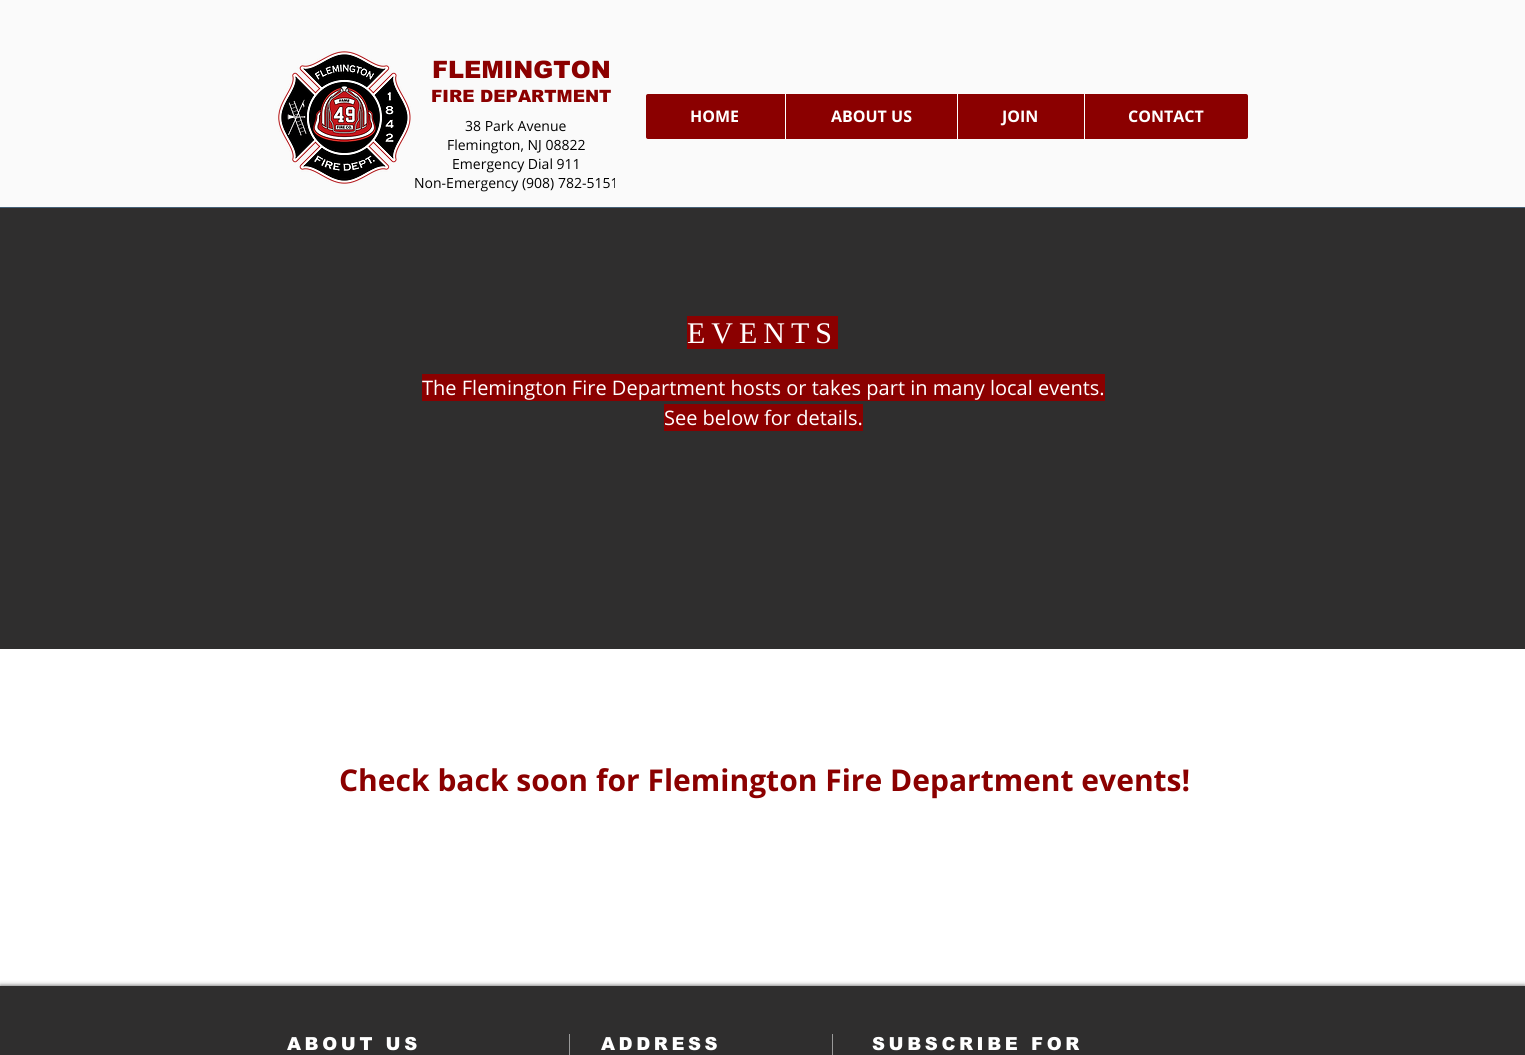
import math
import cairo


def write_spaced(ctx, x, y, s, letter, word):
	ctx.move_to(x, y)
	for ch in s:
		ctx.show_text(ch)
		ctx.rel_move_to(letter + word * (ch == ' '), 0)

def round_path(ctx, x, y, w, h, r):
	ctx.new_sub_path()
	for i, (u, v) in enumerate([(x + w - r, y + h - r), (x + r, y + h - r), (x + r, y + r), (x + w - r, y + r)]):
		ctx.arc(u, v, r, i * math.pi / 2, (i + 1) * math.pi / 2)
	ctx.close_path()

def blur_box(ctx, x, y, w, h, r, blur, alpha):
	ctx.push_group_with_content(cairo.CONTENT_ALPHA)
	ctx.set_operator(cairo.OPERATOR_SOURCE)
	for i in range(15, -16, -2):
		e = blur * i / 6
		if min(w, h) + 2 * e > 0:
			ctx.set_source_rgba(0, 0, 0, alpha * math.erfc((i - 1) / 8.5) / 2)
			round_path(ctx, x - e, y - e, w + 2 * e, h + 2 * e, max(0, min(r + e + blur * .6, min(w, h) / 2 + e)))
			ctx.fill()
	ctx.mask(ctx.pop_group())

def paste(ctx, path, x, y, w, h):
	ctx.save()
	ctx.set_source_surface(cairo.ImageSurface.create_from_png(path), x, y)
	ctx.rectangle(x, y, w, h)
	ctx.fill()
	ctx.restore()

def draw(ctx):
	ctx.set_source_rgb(1, 1, 1)
	ctx.paint()
	ctx.set_source_rgb(0.275, 0.38, 0.471)
	ctx.rectangle(0, 207, 1525, 1)
	ctx.fill()
	ctx.set_source_rgb(0.98, 0.98, 0.98)
	ctx.rectangle(0, 0, 1525, 207)
	ctx.fill()
	paste(ctx, 'media/1.png', 278, 51, 133, 133)
	ctx.select_font_face('arial Black')
	ctx.set_font_size(24)
	ctx.set_source_rgb(0.545, 0, 0)
	ctx.move_to(432, 78)
	ctx.show_text('FLEMINGTON')
	ctx.set_font_size(17)
	ctx.move_to(431, 102)
	ctx.show_text('FIRE DEPARTMENT')
	round_path(ctx, 646, 94, 602, 45, 2)
	ctx.fill()
	ctx.select_font_face('Open Sans', cairo.FONT_SLANT_NORMAL, cairo.FONT_WEIGHT_BOLD)
	ctx.set_font_size(16)
	ctx.set_source_rgb(1, 1, 1)
	ctx.move_to(690, 122)
	ctx.show_text('HOME')
	ctx.rectangle(785, 94, 1, 45)
	ctx.fill()
	ctx.move_to(831, 122)
	ctx.show_text('ABOUT US')
	ctx.rectangle(957, 94, 1, 45)
	ctx.fill()
	ctx.move_to(1002, 122)
	ctx.show_text('JOIN')
	ctx.rectangle(1084, 94, 1, 45)
	ctx.fill()
	ctx.move_to(1128, 122)
	ctx.show_text('CONTACT')
	ctx.select_font_face('Open Sans')
	ctx.set_font_size(14)
	ctx.set_source_rgb(0, 0, 0)
	for x, y, s in [
		(465, 131, '38 Park Avenue'),
		(447, 150, 'Flemington, NJ 08822'),
		(452, 169, 'Emergency Dial 911'),
		(414, 188, 'Non-Emergency (908) 782-5151'),
	]:
		ctx.move_to(x, y)
		ctx.show_text(s)
	ctx.set_source_rgb(0.184, 0.18, 0.18)
	ctx.rectangle(0, 208, 1525, 441)
	ctx.fill()
	ctx.set_source_rgb(0.545, 0, 0)
	ctx.rectangle(687, 316, 151, 33)
	ctx.fill()
	ctx.select_font_face('Liberation Serif')
	ctx.set_font_size(30)
	ctx.set_source_rgb(1, 1, 1)
	write_spaced(ctx, 687, 343, 'EVENTS', 6, 0)
	ctx.set_source_rgb(0.545, 0, 0)
	ctx.rectangle(422, 374, 683, 27)
	ctx.fill()
	ctx.select_font_face('Open Sans')
	ctx.set_font_size(20)
	ctx.set_source_rgb(1, 1, 1)
	ctx.move_to(422, 395)
	ctx.show_text('The Flemington Fire Department hosts or takes part in many local events.')
	ctx.set_source_rgb(0.545, 0, 0)
	ctx.rectangle(664, 404, 199, 27)
	ctx.fill()
	ctx.set_source_rgb(1, 1, 1)
	ctx.move_to(664, 425)
	ctx.show_text('See below for details.')
	ctx.select_font_face('Open Sans', cairo.FONT_SLANT_NORMAL, cairo.FONT_WEIGHT_BOLD)
	ctx.set_font_size(30)
	ctx.set_source_rgb(0.545, 0, 0)
	ctx.move_to(339, 791)
	ctx.show_text('Check back soon for Flemington Fire Department events!')
	ctx.set_source_rgb(0, 0, 0)
	blur_box(ctx, 0, 986, 1525, 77, 0, 2.5, 0.7)
	ctx.set_source_rgb(0.184, 0.18, 0.18)
	ctx.rectangle(0, 986, 1525, 69)
	ctx.fill()
	ctx.select_font_face('arial Black')
	ctx.set_font_size(18)
	ctx.set_source_rgb(1, 1, 1)
	write_spaced(ctx, 287, 1050, 'ABOUT US', 3.6, 0)
	ctx.set_source_rgb(0.6, 0.6, 0.6)
	ctx.rectangle(569, 1034, 1, 21)
	ctx.fill()
	ctx.set_source_rgb(1, 1, 1)
	write_spaced(ctx, 601, 1050, 'ADDRESS', 3.6, 0)
	ctx.set_source_rgb(0.6, 0.6, 0.6)
	ctx.rectangle(832, 1034, 1, 21)
	ctx.fill()
	ctx.set_source_rgb(1, 1, 1)
	write_spaced(ctx, 872, 1050, 'SUBSCRIBE FOR', 3.6, 0)


surface = cairo.ImageSurface(cairo.FORMAT_RGB24, 1525, 1055)
ctx = cairo.Context(surface)
options = cairo.FontOptions()
options.set_hint_metrics(cairo.HINT_METRICS_OFF)
options.set_hint_style(cairo.HINT_STYLE_NONE)
ctx.set_font_options(options)
ctx.set_miter_limit(4)
draw(ctx)
surface.write_to_png('image.png')
